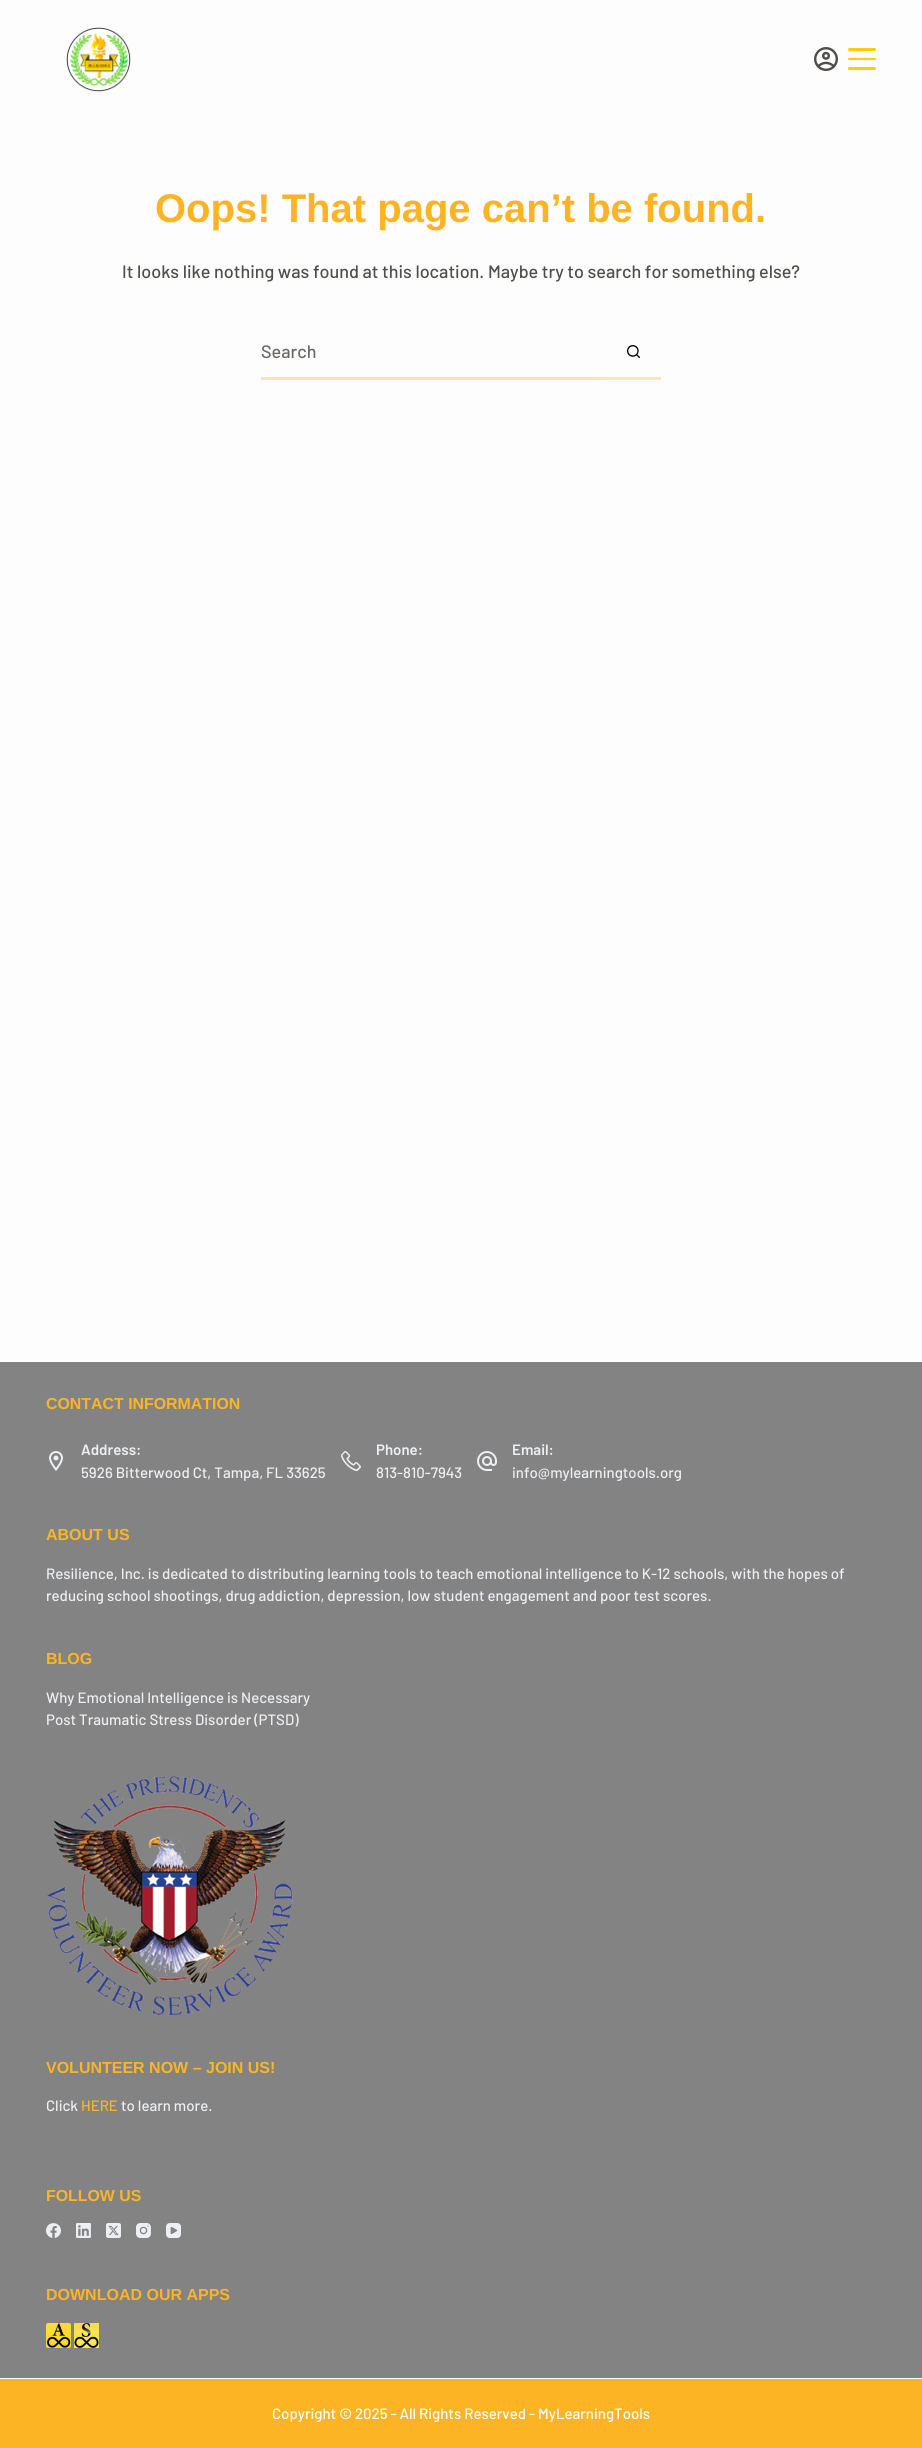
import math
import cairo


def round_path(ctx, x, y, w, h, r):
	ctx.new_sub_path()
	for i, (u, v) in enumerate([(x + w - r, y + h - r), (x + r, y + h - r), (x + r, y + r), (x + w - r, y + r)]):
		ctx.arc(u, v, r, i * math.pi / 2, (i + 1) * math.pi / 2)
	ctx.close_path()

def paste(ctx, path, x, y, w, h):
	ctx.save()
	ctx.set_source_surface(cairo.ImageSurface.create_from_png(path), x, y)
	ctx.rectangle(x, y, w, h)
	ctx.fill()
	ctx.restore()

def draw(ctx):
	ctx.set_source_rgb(0.992, 0.992, 0.992)
	ctx.paint()
	paste(ctx, 'media/1.png', 66, 27, 65, 65)
	paste(ctx, 'media/2.png', 814, 47, 24, 24)
	ctx.set_source_rgb(1, 0.804, 0.02)
	round_path(ctx, 848, 48, 28, 3, 1.5)
	ctx.fill()
	round_path(ctx, 848, 58, 28, 2, 1)
	ctx.fill()
	round_path(ctx, 848, 67, 28, 3, 1.5)
	ctx.fill()
	ctx.select_font_face('Liberation Sans', cairo.FONT_SLANT_NORMAL, cairo.FONT_WEIGHT_BOLD)
	ctx.set_font_size(40)
	ctx.set_source_rgb(0.988, 0.706, 0.141)
	ctx.move_to(155, 222)
	ctx.show_text('Oops! That page can’t be found.')
	ctx.select_font_face('Barlow Medium')
	ctx.set_font_size(18)
	ctx.set_source_rgb(0.314, 0.306, 0.29)
	ctx.move_to(122, 278)
	ctx.show_text('It looks like nothing was found at this location. Maybe try to search for something else?')
	ctx.set_source_rgb(0.992, 0.898, 0.718)
	ctx.rectangle(261, 377, 345, 3)
	ctx.fill()
	ctx.set_source_rgb(0.42, 0.408, 0.396)
	ctx.move_to(261, 358)
	ctx.show_text('Search')
	ctx.set_source_rgb(0.996, 0.906, 0.722)
	ctx.rectangle(606, 377, 55, 3)
	ctx.fill()
	paste(ctx, 'media/3.png', 627, 345, 13, 13)
	ctx.set_source_rgb(0.514, 0.514, 0.514)
	ctx.rectangle(0, 1362, 922, 1016)
	ctx.fill()
	ctx.select_font_face('Liberation Sans', cairo.FONT_SLANT_NORMAL, cairo.FONT_WEIGHT_BOLD)
	ctx.set_font_size(15.9)
	ctx.set_source_rgb(0.988, 0.706, 0.141)
	ctx.move_to(46, 1409)
	ctx.show_text('CONTACT INFORMATION')
	paste(ctx, 'media/4.png', 49, 1451, 14, 20)
	ctx.select_font_face('Barlow SemiBold')
	ctx.set_font_size(15)
	ctx.set_source_rgb(0.929, 0.937, 0.949)
	ctx.move_to(81, 1455)
	ctx.show_text('Address:')
	ctx.select_font_face('Barlow Medium')
	ctx.move_to(81, 1478)
	ctx.show_text('5926 Bitterwood Ct, Tampa, FL 33625')
	paste(ctx, 'media/5.png', 341, 1451, 20, 20)
	ctx.select_font_face('Barlow SemiBold')
	ctx.move_to(376, 1455)
	ctx.show_text('Phone:')
	ctx.select_font_face('Barlow Medium')
	ctx.move_to(376, 1478)
	ctx.show_text('813-810-7943')
	paste(ctx, 'media/6.png', 477, 1451, 20, 20)
	ctx.select_font_face('Barlow SemiBold')
	ctx.move_to(512, 1455)
	ctx.show_text('Email:')
	ctx.select_font_face('Barlow Medium')
	ctx.move_to(512, 1478)
	ctx.show_text('info@mylearningtools.org')
	ctx.select_font_face('Liberation Sans', cairo.FONT_SLANT_NORMAL, cairo.FONT_WEIGHT_BOLD)
	ctx.set_font_size(16)
	ctx.set_source_rgb(0.988, 0.706, 0.141)
	ctx.move_to(46, 1540)
	ctx.show_text('ABOUT US')
	ctx.select_font_face('Barlow Medium')
	ctx.set_font_size(15)
	ctx.set_source_rgb(0.929, 0.937, 0.949)
	ctx.move_to(46, 1579)
	ctx.show_text('Resilience, Inc. is dedicated to distributing learning tools to teach emotional intelligence to K-12 schools, with the hopes of')
	ctx.move_to(46, 1601)
	ctx.show_text('reducing school shootings, drug addiction, depression, low student engagement and poor test scores.')
	ctx.select_font_face('Liberation Sans', cairo.FONT_SLANT_NORMAL, cairo.FONT_WEIGHT_BOLD)
	ctx.set_font_size(16)
	ctx.set_source_rgb(0.988, 0.706, 0.141)
	ctx.move_to(46, 1664)
	ctx.show_text('BLOG')
	ctx.select_font_face('Barlow Medium')
	ctx.set_font_size(15)
	ctx.set_source_rgb(0.929, 0.937, 0.949)
	ctx.move_to(46, 1703)
	ctx.show_text('Why Emotional Intelligence is Necessary')
	ctx.move_to(46, 1725)
	ctx.show_text('Post Traumatic Stress Disorder (PTSD)')
	paste(ctx, 'media/7.png', 47, 1776, 246, 240)
	ctx.select_font_face('Liberation Sans', cairo.FONT_SLANT_NORMAL, cairo.FONT_WEIGHT_BOLD)
	ctx.set_font_size(16)
	ctx.set_source_rgb(0.988, 0.706, 0.141)
	ctx.move_to(46, 2073)
	ctx.show_text('VOLUNTEER NOW – JOIN US!')
	ctx.select_font_face('Barlow Medium')
	ctx.set_font_size(15)
	ctx.set_source_rgb(0.929, 0.937, 0.949)
	ctx.move_to(46, 2111)
	ctx.show_text('Click')
	ctx.set_source_rgb(0.988, 0.706, 0.141)
	ctx.move_to(81, 2111)
	ctx.show_text('HERE')
	ctx.set_source_rgb(0.929, 0.937, 0.949)
	ctx.move_to(121, 2111)
	ctx.show_text('to learn more.')
	ctx.select_font_face('Liberation Sans', cairo.FONT_SLANT_NORMAL, cairo.FONT_WEIGHT_BOLD)
	ctx.set_font_size(15.9)
	ctx.set_source_rgb(0.988, 0.706, 0.141)
	ctx.move_to(46, 2201)
	ctx.show_text('FOLLOW US')
	paste(ctx, 'media/8.png', 46, 2223, 15, 15)
	paste(ctx, 'media/9.png', 76, 2223, 15, 15)
	paste(ctx, 'media/10.png', 106, 2223, 15, 15)
	paste(ctx, 'media/11.png', 136, 2223, 15, 15)
	paste(ctx, 'media/12.png', 166, 2223, 15, 15)
	ctx.set_font_size(16)
	ctx.move_to(46, 2300)
	ctx.show_text('DOWNLOAD OUR APPS')
	paste(ctx, 'media/13.png', 46, 2323, 25, 25)
	paste(ctx, 'media/14.png', 74, 2323, 25, 25)
	ctx.rectangle(0, 2379, 922, 69)
	ctx.fill()
	ctx.select_font_face('Barlow Medium')
	ctx.set_font_size(15)
	ctx.set_source_rgb(1, 1, 1)
	ctx.move_to(272, 2419)
	ctx.show_text('Copyright © 2025 - All Rights Reserved - MyLearningTools')


surface = cairo.ImageSurface(cairo.FORMAT_RGB24, 922, 2448)
ctx = cairo.Context(surface)
options = cairo.FontOptions()
options.set_hint_metrics(cairo.HINT_METRICS_OFF)
options.set_hint_style(cairo.HINT_STYLE_NONE)
ctx.set_font_options(options)
ctx.set_miter_limit(4)
draw(ctx)
surface.write_to_png('image.png')
